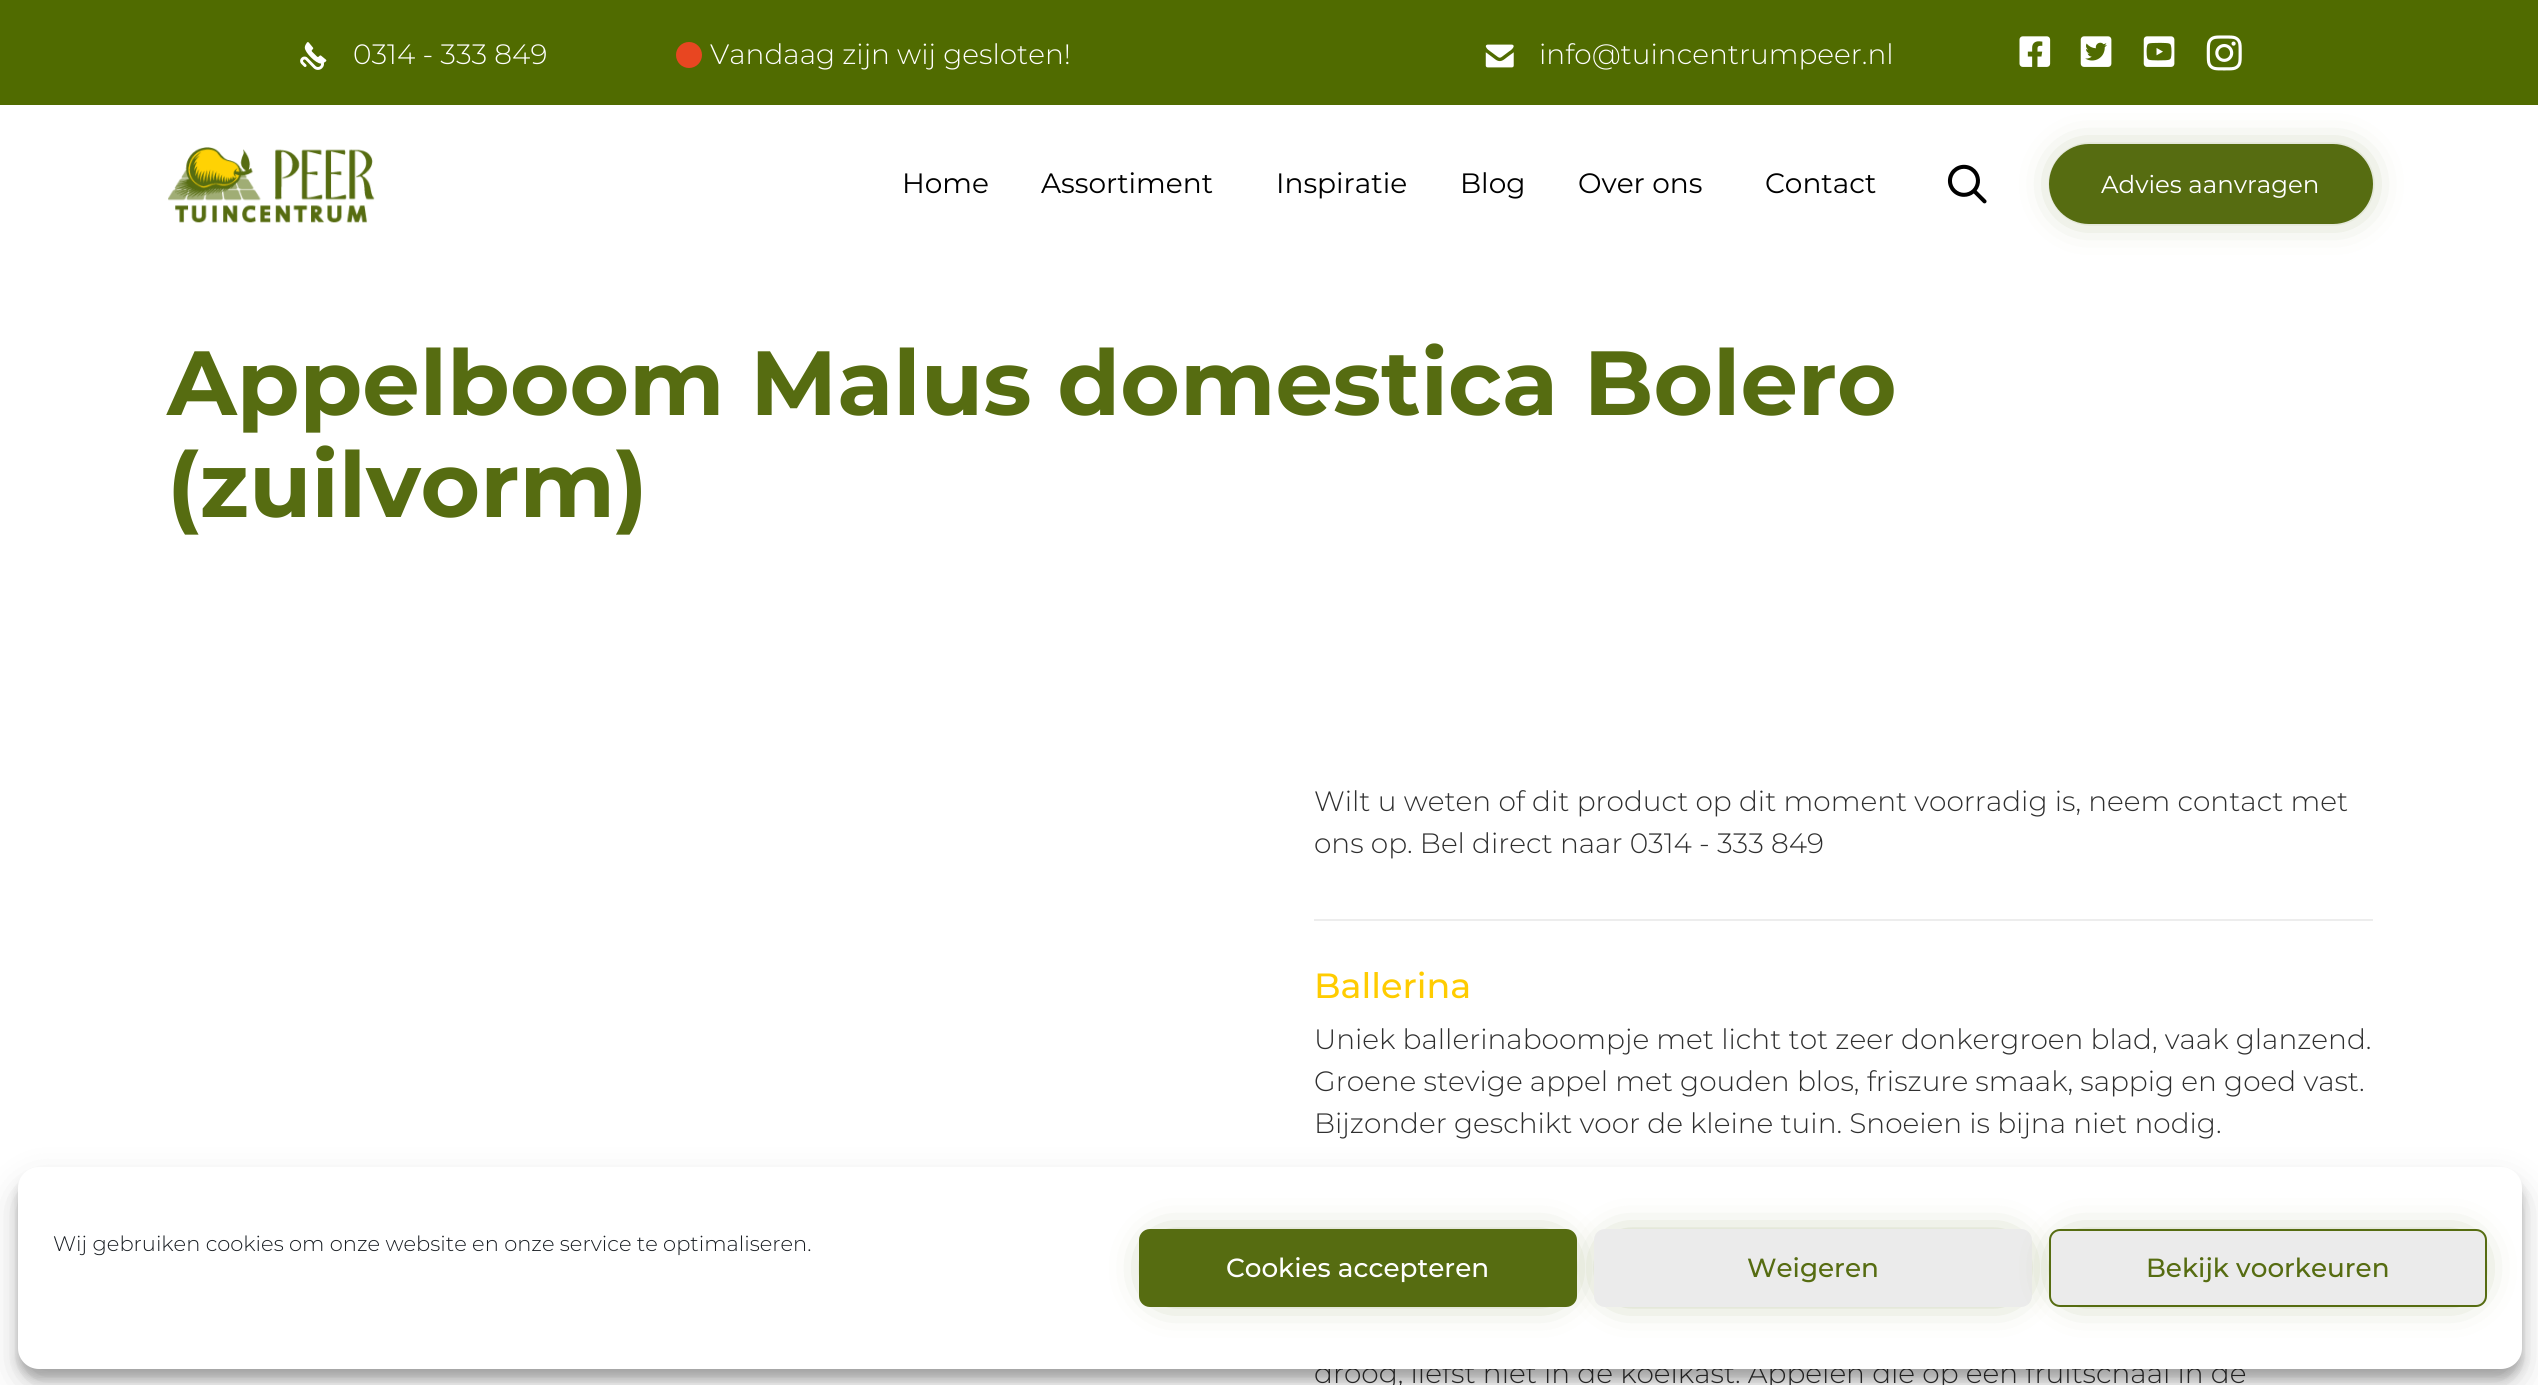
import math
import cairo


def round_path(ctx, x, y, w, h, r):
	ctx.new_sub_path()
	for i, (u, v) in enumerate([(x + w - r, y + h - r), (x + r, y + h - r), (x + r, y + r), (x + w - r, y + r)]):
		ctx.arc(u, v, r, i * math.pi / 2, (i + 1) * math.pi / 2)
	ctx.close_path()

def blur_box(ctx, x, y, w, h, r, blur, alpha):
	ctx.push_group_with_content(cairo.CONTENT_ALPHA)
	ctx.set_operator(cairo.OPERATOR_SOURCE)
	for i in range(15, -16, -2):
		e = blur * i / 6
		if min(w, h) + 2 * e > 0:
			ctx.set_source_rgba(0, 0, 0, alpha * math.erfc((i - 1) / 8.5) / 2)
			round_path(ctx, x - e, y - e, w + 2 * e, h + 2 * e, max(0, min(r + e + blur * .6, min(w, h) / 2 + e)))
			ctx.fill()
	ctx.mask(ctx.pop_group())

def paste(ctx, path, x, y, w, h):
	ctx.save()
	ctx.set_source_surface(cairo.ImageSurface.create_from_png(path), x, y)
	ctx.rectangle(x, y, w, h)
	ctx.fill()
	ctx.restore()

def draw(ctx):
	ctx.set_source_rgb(1, 1, 1)
	ctx.paint()
	ctx.set_source_rgb(0.337, 0.424, 0.067)
	blur_box(ctx, 2074, 168, 275, 32, 16, 22, 1)
	ctx.set_source_rgb(0.314, 0.42, 0)
	ctx.rectangle(0, 0, 2538, 105)
	ctx.fill()
	paste(ctx, 'media/1.png', 300, 42, 27, 28)
	ctx.select_font_face('Montserrat Light')
	ctx.set_font_size(28)
	ctx.set_source_rgb(1, 1, 1)
	ctx.move_to(353, 64)
	ctx.show_text('0314 - 333 849')
	ctx.set_source_rgb(0.91, 0.275, 0.129)
	ctx.new_path()
	ctx.arc(689, 55, 13, 0, 2 * math.pi)
	ctx.fill()
	ctx.set_source_rgb(1, 1, 1)
	ctx.move_to(710, 64)
	ctx.show_text('Vandaag zijn wij gesloten!')
	paste(ctx, 'media/2.png', 1485, 44, 29, 24)
	ctx.move_to(1539, 64)
	ctx.show_text('info@tuincentrumpeer.nl')
	paste(ctx, 'media/3.png', 2019, 36, 32, 31)
	paste(ctx, 'media/4.png', 2080, 36, 32, 31)
	paste(ctx, 'media/5.png', 2143, 36, 32, 31)
	paste(ctx, 'media/6.png', 2206, 35, 36, 36)
	paste(ctx, 'media/7.png', 168, 147, 207, 76)
	ctx.select_font_face('Montserrat')
	ctx.set_source_rgb(0, 0, 0)
	for x, y, s in [
		(902, 193, 'Home'),
		(1041, 193, 'Assortiment'),
		(1276, 193, 'Inspiratie'),
		(1460, 193, 'Blog'),
		(1578, 193, 'Over ons'),
		(1765, 193, 'Contact'),
	]:
		ctx.move_to(x, y)
		ctx.show_text(s)
	paste(ctx, 'media/8.png', 1947, 164, 40, 40)
	ctx.set_source_rgb(0.337, 0.424, 0.067)
	round_path(ctx, 2049, 144, 324, 80, 40)
	ctx.fill()
	ctx.set_font_size(24.5)
	ctx.set_source_rgb(1, 1, 1)
	ctx.move_to(2101, 193)
	ctx.show_text('Advies aanvragen')
	ctx.select_font_face('Montserrat', cairo.FONT_SLANT_NORMAL, cairo.FONT_WEIGHT_BOLD)
	ctx.set_font_size(91)
	ctx.set_source_rgb(0.337, 0.424, 0.067)
	ctx.move_to(167, 415)
	ctx.show_text('Appelboom Malus domestica Bolero')
	ctx.move_to(167, 517)
	ctx.show_text('(zuilvorm)')
	ctx.select_font_face('Montserrat Light')
	ctx.set_font_size(28)
	ctx.set_source_rgb(0.184, 0.184, 0.184)
	ctx.move_to(1314, 811)
	ctx.show_text('Wilt u weten of dit product op dit moment voorradig is, neem contact met')
	ctx.move_to(1314, 853)
	ctx.show_text('ons op. Bel direct naar 0314 - 333 849')
	ctx.set_source_rgb(0.929, 0.929, 0.929)
	ctx.rectangle(1314, 919, 1059, 2)
	ctx.fill()
	ctx.select_font_face('Montserrat Medium')
	ctx.set_font_size(35)
	ctx.set_source_rgb(1, 0.8, 0)
	ctx.move_to(1314, 998)
	ctx.show_text('Ballerina')
	ctx.select_font_face('Montserrat Light')
	ctx.set_font_size(28)
	ctx.set_source_rgb(0.184, 0.184, 0.184)
	for x, y, s in [
		(1314, 1049, 'Uniek ballerinaboompje met licht tot zeer donkergroen blad, vaak glanzend.'),
		(1314, 1091, 'Groene stevige appel met gouden blos, friszure smaak, sappig en goed vast.'),
		(1314, 1133, 'Bijzonder geschikt voor de kleine tuin. Snoeien is bijna niet nodig.'),
		(1314, 1383, 'droog, liefst niet in de koelkast. Appelen die op een fruitschaal in de'),
	]:
		ctx.move_to(x, y)
		ctx.show_text(s)
	ctx.set_source_rgb(0, 0, 0)
	blur_box(ctx, 18, 1178, 2504, 201, 21, 5, 0.23)
	blur_box(ctx, 18, 1185, 2504, 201, 21, 17.5, 0.19)
	ctx.set_source_rgb(1, 1, 1)
	round_path(ctx, 18, 1167, 2504, 202, 21)
	ctx.fill()
	ctx.set_font_size(21)
	ctx.set_source_rgb(0.098, 0.118, 0.137)
	ctx.move_to(53, 1251)
	ctx.show_text('Wij gebruiken cookies om onze website en onze service te optimaliseren.')
	ctx.set_source_rgb(0.337, 0.424, 0.067)
	blur_box(ctx, 1164, 1253, 388, 30, 0, 22, 1)
	ctx.set_source_rgb(0.337, 0.424, 0.067)
	round_path(ctx, 1140, 1230, 436, 76, 10)
	ctx.fill_preserve()
	ctx.stroke()
	ctx.select_font_face('Montserrat Medium')
	ctx.set_font_size(26.25)
	ctx.set_source_rgb(1, 1, 1)
	ctx.move_to(1226, 1277)
	ctx.show_text('Cookies accepteren')
	ctx.set_source_rgb(0.337, 0.424, 0.067)
	blur_box(ctx, 1619, 1253, 388, 30, 0, 22, 1)
	ctx.set_source_rgb(0.918, 0.918, 0.918)
	round_path(ctx, 1595, 1230, 436, 76, 10)
	ctx.fill_preserve()
	ctx.stroke()
	ctx.set_source_rgb(0.337, 0.424, 0.067)
	ctx.move_to(1747, 1277)
	ctx.show_text('Weigeren')
	ctx.set_source_rgb(0.337, 0.424, 0.067)
	blur_box(ctx, 2074, 1253, 388, 30, 0, 22, 1)
	ctx.set_source_rgb(0.918, 0.918, 0.918)
	round_path(ctx, 2050, 1230, 436, 76, 10)
	ctx.fill_preserve()
	ctx.set_source_rgb(0.337, 0.424, 0.067)
	ctx.stroke()
	ctx.move_to(2146, 1277)
	ctx.show_text('Bekijk voorkeuren')


surface = cairo.ImageSurface(cairo.FORMAT_RGB24, 2538, 1385)
ctx = cairo.Context(surface)
options = cairo.FontOptions()
options.set_hint_metrics(cairo.HINT_METRICS_OFF)
options.set_hint_style(cairo.HINT_STYLE_NONE)
ctx.set_font_options(options)
ctx.set_miter_limit(4)
draw(ctx)
surface.write_to_png('image.png')
